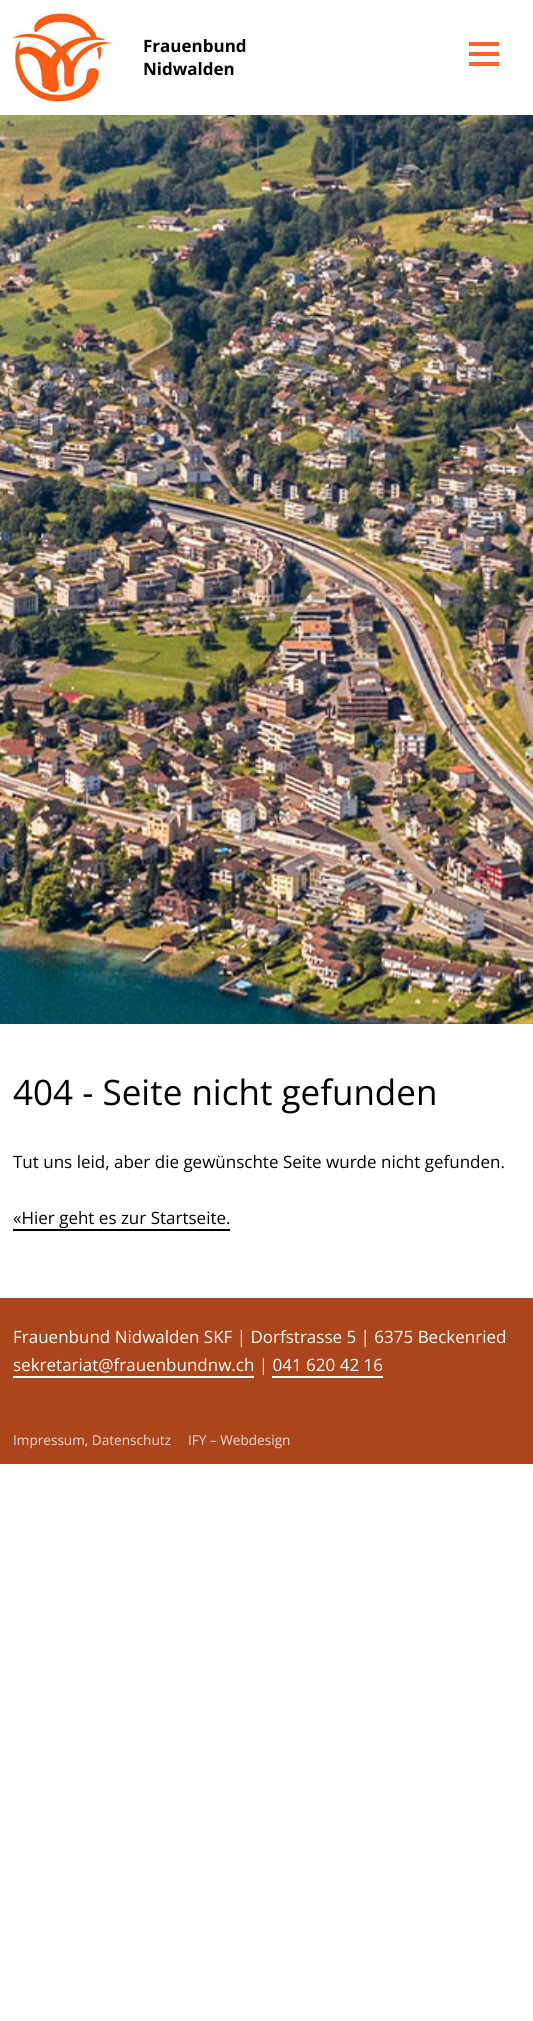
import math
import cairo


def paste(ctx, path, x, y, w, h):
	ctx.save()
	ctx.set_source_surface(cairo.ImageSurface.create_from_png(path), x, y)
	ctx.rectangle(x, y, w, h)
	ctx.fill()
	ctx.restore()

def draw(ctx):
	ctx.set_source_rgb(1, 1, 1)
	ctx.paint()
	paste(ctx, 'media/1.png', 13, 13, 100, 89)
	ctx.select_font_face('Open Sans', cairo.FONT_SLANT_NORMAL, cairo.FONT_WEIGHT_BOLD)
	ctx.set_font_size(17)
	ctx.set_source_rgb(0, 0, 0)
	ctx.move_to(143, 52)
	ctx.show_text('Frauenbund')
	ctx.move_to(143, 75)
	ctx.show_text('Nidwalden')
	ctx.set_source_rgb(0.969, 0.392, 0.161)
	ctx.rectangle(469, 52, 30, 4)
	ctx.rectangle(469, 42, 30, 4)
	ctx.rectangle(469, 62, 30, 4)
	ctx.fill()
	paste(ctx, 'media/2.png', 0, 115, 533, 909)
	ctx.select_font_face('Open Sans')
	ctx.set_font_size(35)
	ctx.set_source_rgb(0, 0, 0)
	ctx.move_to(13, 1105)
	ctx.show_text('404 - Seite nicht gefunden')
	ctx.set_font_size(17)
	ctx.move_to(13, 1168)
	ctx.show_text('Tut uns leid, aber die gewünschte Seite wurde nicht gefunden.')
	ctx.move_to(13, 1224)
	ctx.show_text('«Hier geht es zur Startseite.')
	ctx.rectangle(13, 1229, 217, 2)
	ctx.fill()
	ctx.set_source_rgb(0.667, 0.271, 0.11)
	ctx.rectangle(0, 1298, 533, 166)
	ctx.fill()
	ctx.set_source_rgb(1, 1, 1)
	ctx.move_to(13, 1343)
	ctx.show_text('Frauenbund Nidwalden SKF | Dorfstrasse 5 | 6375 Beckenried')
	ctx.move_to(13, 1371)
	ctx.show_text('sekretariat@frauenbundnw.ch | 041 620 42 16')
	ctx.rectangle(13, 1376, 241, 2)
	ctx.fill()
	ctx.rectangle(272, 1376, 111, 2)
	ctx.fill()
	ctx.set_font_size(13.6)
	ctx.set_source_rgb(0.933, 0.855, 0.824)
	ctx.move_to(13, 1445)
	ctx.show_text('Impressum, Datenschutz')
	ctx.move_to(188, 1445)
	ctx.show_text('IFY – Webdesign')


surface = cairo.ImageSurface(cairo.FORMAT_RGB24, 533, 2021)
ctx = cairo.Context(surface)
options = cairo.FontOptions()
options.set_hint_metrics(cairo.HINT_METRICS_OFF)
options.set_hint_style(cairo.HINT_STYLE_NONE)
ctx.set_font_options(options)
ctx.set_miter_limit(4)
draw(ctx)
surface.write_to_png('image.png')
